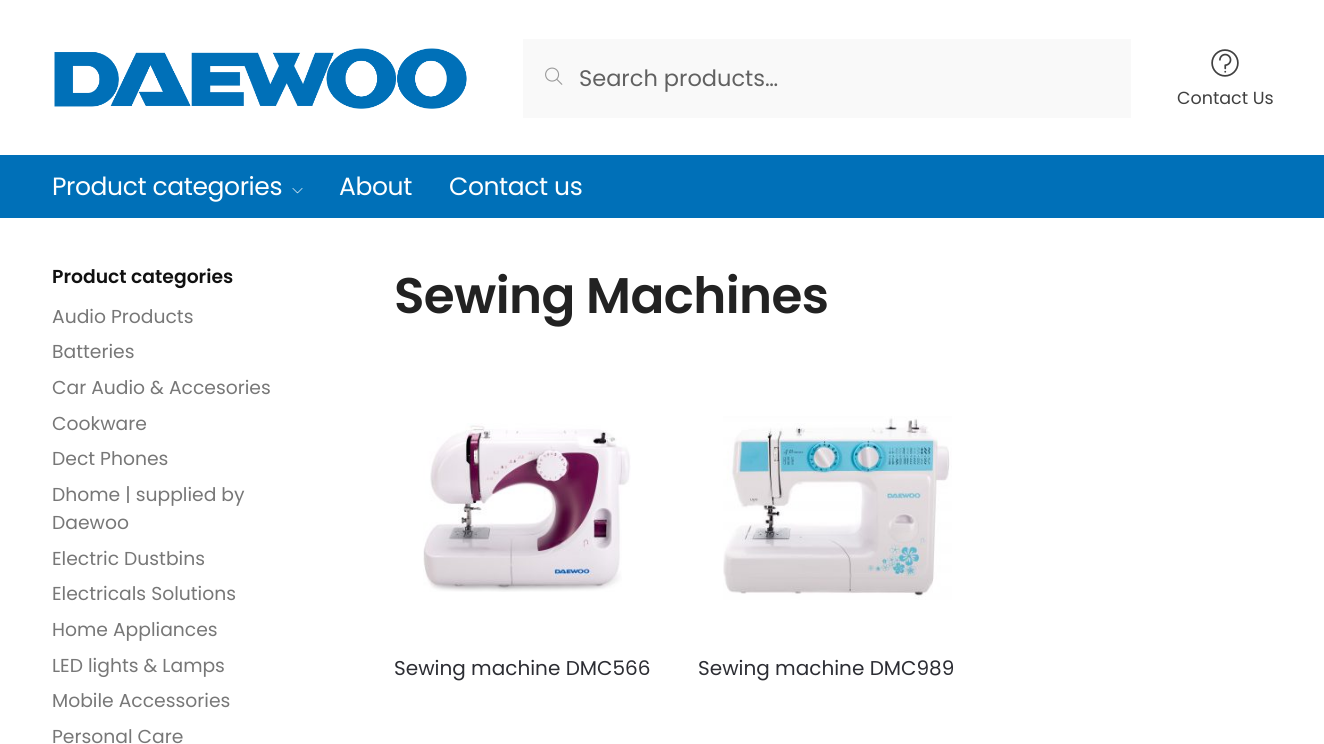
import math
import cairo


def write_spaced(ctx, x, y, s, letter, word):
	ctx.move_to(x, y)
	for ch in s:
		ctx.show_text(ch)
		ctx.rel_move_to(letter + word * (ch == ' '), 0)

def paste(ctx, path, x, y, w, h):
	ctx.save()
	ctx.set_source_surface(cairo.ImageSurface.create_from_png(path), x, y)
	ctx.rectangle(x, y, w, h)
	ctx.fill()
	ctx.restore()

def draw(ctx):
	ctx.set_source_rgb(1, 1, 1)
	ctx.paint()
	paste(ctx, 'media/1.png', 54, 48, 413, 61)
	ctx.set_source_rgb(0.973, 0.973, 0.973)
	ctx.rectangle(523, 39, 608, 79)
	ctx.fill()
	paste(ctx, 'media/2.png', 545, 67, 18, 18)
	ctx.select_font_face('Poppins')
	ctx.set_font_size(22.5)
	ctx.set_source_rgb(0.38, 0.38, 0.38)
	ctx.move_to(579, 86)
	ctx.show_text('Search products…')
	paste(ctx, 'media/3.png', 1211, 49, 28, 28)
	ctx.set_font_size(17.5)
	ctx.set_source_rgb(0.251, 0.251, 0.251)
	ctx.move_to(1177, 104)
	ctx.show_text('Contact Us')
	ctx.set_source_rgb(0, 0.439, 0.722)
	ctx.rectangle(0, 155, 1324, 63)
	ctx.fill()
	ctx.set_font_size(25)
	ctx.set_source_rgb(1, 1, 1)
	write_spaced(ctx, 52, 195, 'Product categories', -0.4, 0)
	paste(ctx, 'media/4.png', 292, 188, 11, 6)
	write_spaced(ctx, 339, 195, 'About', -0.4, 0)
	write_spaced(ctx, 449, 195, 'Contact us', -0.4, 0)
	ctx.select_font_face('Poppins SemiBold')
	ctx.set_font_size(18.75)
	ctx.set_source_rgb(0.067, 0.067, 0.067)
	ctx.move_to(52, 283)
	ctx.show_text('Product categories')
	ctx.select_font_face('Poppins')
	ctx.set_source_rgb(0.467, 0.467, 0.467)
	for x, y, s in [
		(52, 323, 'Audio Products'),
		(52, 358, 'Batteries'),
		(52, 394, 'Car Audio & Accesories'),
		(52, 430, 'Cookware'),
		(52, 465, 'Dect Phones'),
		(52, 501, 'Dhome | supplied by'),
		(52, 529, 'Daewoo'),
		(52, 565, 'Electric Dustbins'),
		(52, 600, 'Electricals Solutions'),
		(52, 636, 'Home Appliances'),
		(52, 672, 'LED lights & Lamps'),
		(52, 707, 'Mobile Accessories'),
		(52, 743, 'Personal Care'),
	]:
		ctx.move_to(x, y)
		ctx.show_text(s)
	ctx.select_font_face('Poppins SemiBold')
	ctx.set_font_size(50)
	ctx.set_source_rgb(0.133, 0.133, 0.133)
	write_spaced(ctx, 394, 313, 'Sewing Machines', -0.6, 0)
	paste(ctx, 'media/5.png', 423, 423, 208, 169)
	ctx.select_font_face('Poppins')
	ctx.set_font_size(20)
	ctx.set_source_rgb(0.173, 0.176, 0.2)
	ctx.move_to(394, 675)
	ctx.show_text('Sewing machine DMC566')
	paste(ctx, 'media/6.png', 723, 416, 229, 184)
	ctx.move_to(698, 675)
	ctx.show_text('Sewing machine DMC989')


surface = cairo.ImageSurface(cairo.FORMAT_RGB24, 1324, 744)
ctx = cairo.Context(surface)
options = cairo.FontOptions()
options.set_hint_metrics(cairo.HINT_METRICS_OFF)
options.set_hint_style(cairo.HINT_STYLE_NONE)
ctx.set_font_options(options)
ctx.set_miter_limit(4)
draw(ctx)
surface.write_to_png('image.png')
